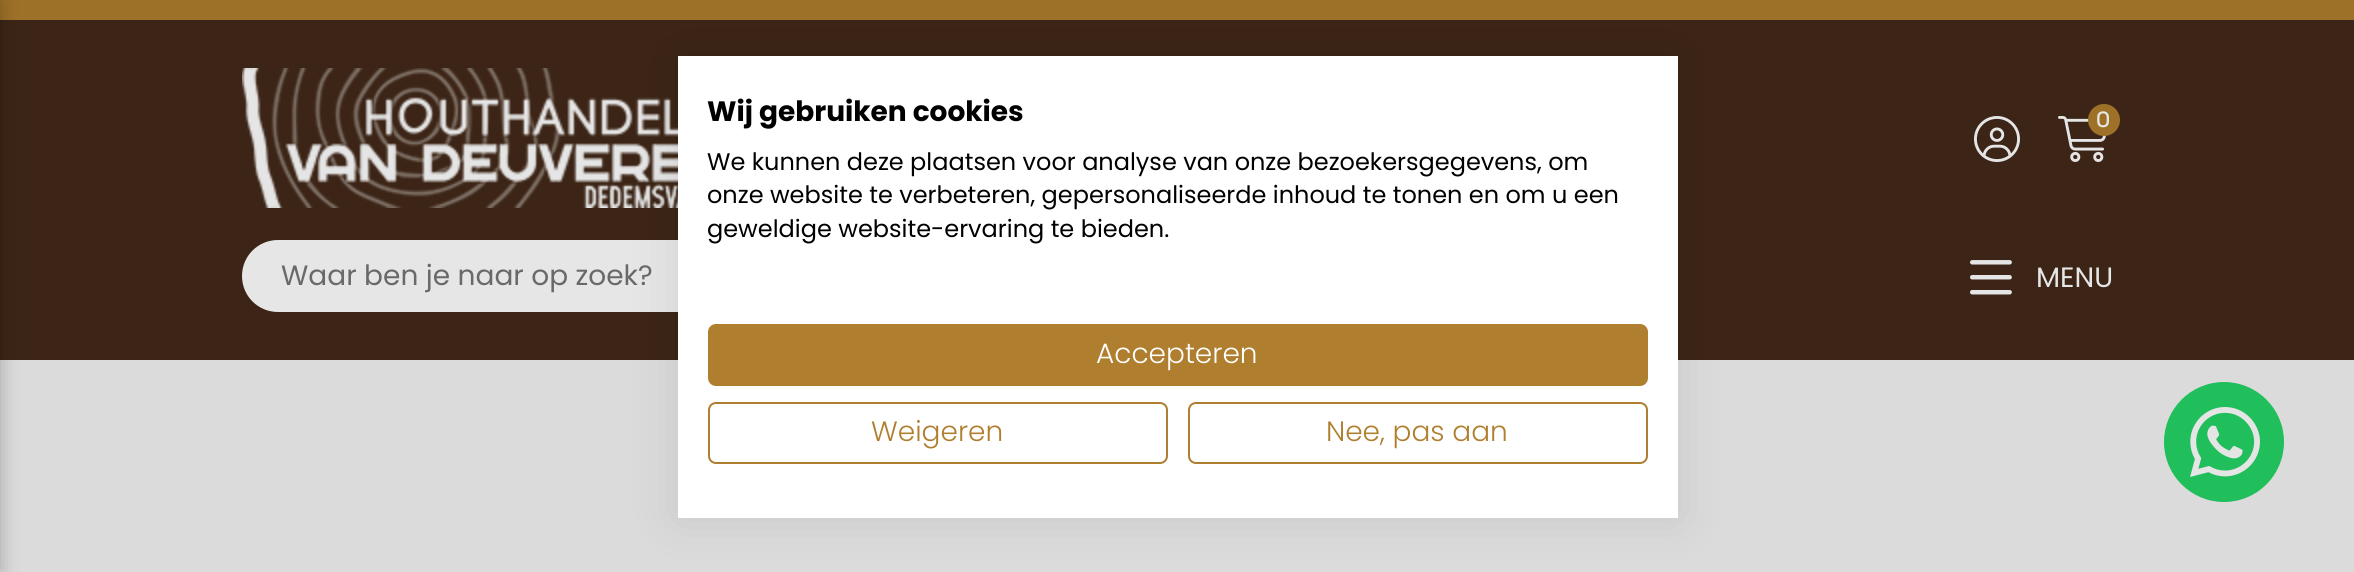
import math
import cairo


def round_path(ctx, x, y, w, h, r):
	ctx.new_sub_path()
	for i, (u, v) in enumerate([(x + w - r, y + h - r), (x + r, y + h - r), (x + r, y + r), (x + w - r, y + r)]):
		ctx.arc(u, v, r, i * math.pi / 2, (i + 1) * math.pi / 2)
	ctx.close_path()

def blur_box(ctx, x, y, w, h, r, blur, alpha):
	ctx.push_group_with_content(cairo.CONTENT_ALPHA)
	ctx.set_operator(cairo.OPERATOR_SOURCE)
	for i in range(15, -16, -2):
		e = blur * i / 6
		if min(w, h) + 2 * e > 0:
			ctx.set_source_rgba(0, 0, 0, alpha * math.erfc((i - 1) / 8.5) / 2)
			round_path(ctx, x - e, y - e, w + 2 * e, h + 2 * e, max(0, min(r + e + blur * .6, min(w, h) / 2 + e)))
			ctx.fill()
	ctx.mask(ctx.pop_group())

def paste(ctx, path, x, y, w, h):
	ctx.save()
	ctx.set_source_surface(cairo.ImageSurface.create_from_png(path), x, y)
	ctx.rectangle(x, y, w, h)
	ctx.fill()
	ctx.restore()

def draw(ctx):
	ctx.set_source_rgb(0.859, 0.859, 0.863)
	ctx.paint()
	ctx.set_source_rgb(0.235, 0.145, 0.086)
	ctx.rectangle(0, 20, 2354, 340)
	ctx.fill()
	ctx.set_source_rgb(0.62, 0.443, 0.161)
	ctx.rectangle(0, 0, 2354, 20)
	ctx.fill()
	paste(ctx, 'media/1.png', 242, 68, 436, 140)
	ctx.set_source_rgb(0.902, 0.902, 0.902)
	ctx.new_path()
	ctx.move_to(278, 240)
	ctx.line_to(1516, 240)
	ctx.line_to(1516, 312)
	ctx.line_to(278, 312)
	ctx.curve_to(258, 312, 242, 296, 242, 276)
	ctx.curve_to(242, 256, 258, 240, 278, 240)
	ctx.close_path()
	ctx.fill()
	ctx.set_source_rgb(0, 0, 0)
	blur_box(ctx, 678, 56, 1000, 462, 0, 24, 0.1)
	ctx.set_source_rgb(1, 1, 1)
	ctx.rectangle(678, 56, 1000, 462)
	ctx.fill()
	ctx.select_font_face('Poppins', cairo.FONT_SLANT_NORMAL, cairo.FONT_WEIGHT_BOLD)
	ctx.set_font_size(28)
	ctx.set_source_rgb(0, 0, 0)
	ctx.move_to(707, 121)
	ctx.show_text('Wij gebruiken cookies')
	ctx.select_font_face('Poppins')
	ctx.set_font_size(24)
	for x, y, s in [
		(707, 170, 'We kunnen deze plaatsen voor analyse van onze bezoekersgegevens, om'),
		(707, 203, 'onze website te verbeteren, gepersonaliseerde inhoud te tonen en om u een'),
		(707, 237, 'geweldige website-ervaring te bieden.'),
	]:
		ctx.move_to(x, y)
		ctx.show_text(s)
	ctx.set_source_rgb(0.686, 0.494, 0.18)
	round_path(ctx, 709, 325, 938, 60, 7)
	ctx.fill_preserve()
	ctx.stroke()
	ctx.select_font_face('Poppins Light')
	ctx.set_font_size(28)
	ctx.set_source_rgb(1, 1, 1)
	ctx.move_to(1096, 363)
	ctx.show_text('Accepteren')
	round_path(ctx, 709, 403, 458, 60, 7)
	ctx.set_source_rgb(0.686, 0.494, 0.18)
	ctx.stroke()
	ctx.move_to(871, 441)
	ctx.show_text('Weigeren')
	round_path(ctx, 1189, 403, 458, 60, 7)
	ctx.stroke()
	ctx.move_to(1326, 441)
	ctx.show_text('Nee, pas aan')
	ctx.set_source_rgb(0, 0, 0)
	blur_box(ctx, -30, 0, 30, 572, 0, 10, 0.25)
	paste(ctx, 'media/2.png', 1974, 116, 46, 46)
	paste(ctx, 'media/3.png', 2058, 116, 49, 46)
	ctx.set_source_rgb(0.62, 0.443, 0.161)
	ctx.arc(2104, 120, 16, 0, 2 * math.pi)
	ctx.fill()
	ctx.select_font_face('Space Grotesk Medium')
	ctx.set_font_size(22)
	ctx.set_source_rgb(0.902, 0.902, 0.902)
	ctx.move_to(2096, 127)
	ctx.show_text('0')
	ctx.select_font_face('Poppins')
	ctx.set_font_size(28)
	ctx.set_source_rgb(0.412, 0.412, 0.412)
	ctx.move_to(281, 285)
	ctx.show_text('Waar ben je naar op zoek?')
	paste(ctx, 'media/4.png', 1970, 260, 42, 35)
	ctx.set_source_rgb(0.902, 0.902, 0.902)
	ctx.move_to(2036, 287)
	ctx.show_text('MENU')
	ctx.set_source_rgb(0.129, 0.745, 0.361)
	ctx.new_path()
	ctx.arc(2224, 442, 60, 0, 2 * math.pi)
	ctx.fill()
	paste(ctx, 'media/5.png', 2190, 407, 70, 70)


surface = cairo.ImageSurface(cairo.FORMAT_RGB24, 2354, 572)
ctx = cairo.Context(surface)
options = cairo.FontOptions()
options.set_hint_metrics(cairo.HINT_METRICS_OFF)
options.set_hint_style(cairo.HINT_STYLE_NONE)
ctx.set_font_options(options)
ctx.set_miter_limit(4)
draw(ctx)
surface.write_to_png('image.png')
